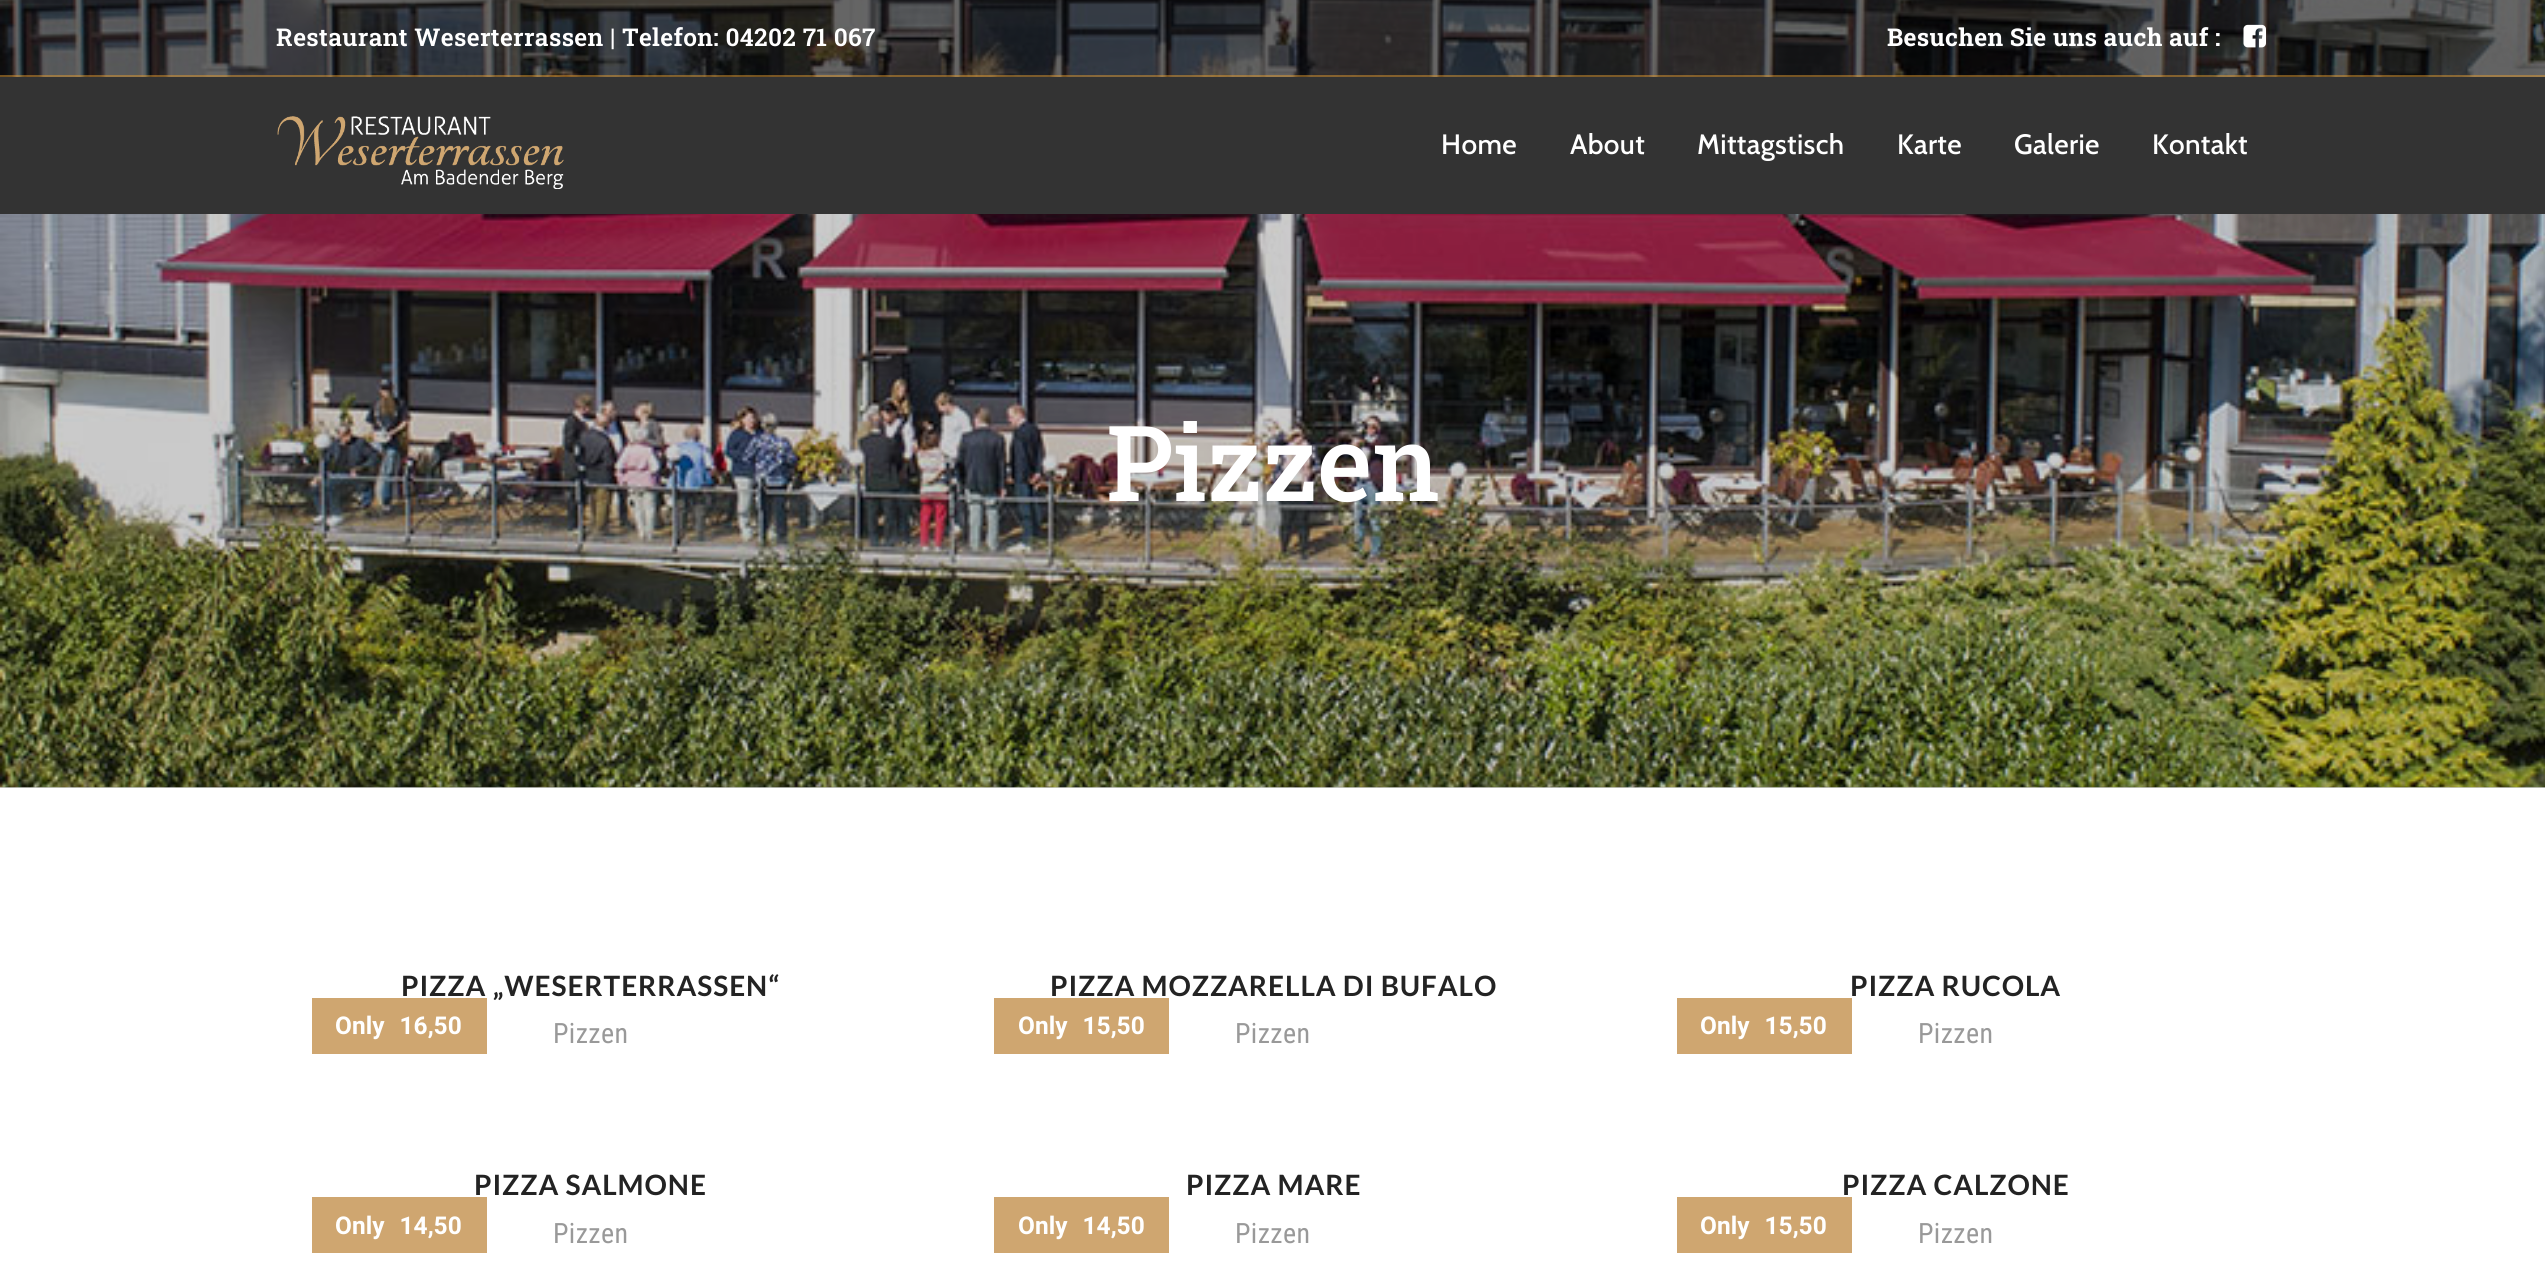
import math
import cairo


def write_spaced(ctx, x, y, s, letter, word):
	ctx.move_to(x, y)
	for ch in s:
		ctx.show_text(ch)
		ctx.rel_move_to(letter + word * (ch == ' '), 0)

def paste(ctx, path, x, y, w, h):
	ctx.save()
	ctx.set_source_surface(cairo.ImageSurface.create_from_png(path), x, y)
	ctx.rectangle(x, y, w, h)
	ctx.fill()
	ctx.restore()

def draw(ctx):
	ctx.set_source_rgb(1, 1, 1)
	ctx.paint()
	ctx.set_source_rgb(0.8, 0.8, 0.8)
	ctx.rectangle(0, 787, 2545, 1)
	ctx.fill()
	paste(ctx, 'media/3.png', 0, 0, 2545, 788)
	ctx.set_source_rgba(0, 0, 0, 0.5)
	ctx.rectangle(0, 0, 2545, 77)
	ctx.fill()
	ctx.set_source_rgba(0.867, 0.6, 0.2, 0.5)
	ctx.rectangle(0, 75, 2545, 2)
	ctx.fill()
	ctx.select_font_face('Roboto Slab SemiBold')
	ctx.set_font_size(24.5)
	ctx.set_source_rgb(1, 1, 1)
	write_spaced(ctx, 276, 46, 'Restaurant Weserterrassen | Telefon: 04202 71 067', 0.35, 0)
	ctx.select_font_face('Roboto Slab', cairo.FONT_SLANT_NORMAL, cairo.FONT_WEIGHT_BOLD)
	write_spaced(ctx, 1887, 46, 'Besuchen Sie uns auch auf :', 0.35, 0)
	paste(ctx, 'media/1.png', 2243, 24, 23, 24)
	ctx.set_source_rgb(0.2, 0.2, 0.2)
	ctx.rectangle(0, 77, 2545, 137)
	ctx.fill()
	paste(ctx, 'media/2.png', 277, 116, 287, 73)
	ctx.select_font_face('Cabin Medium')
	ctx.set_font_size(28)
	ctx.set_source_rgb(1, 1, 1)
	for x, y, s in [
		(1441, 154, 'Home'),
		(1570, 154, 'About'),
		(1697, 154, 'Mittagstisch'),
		(1897, 154, 'Karte'),
		(2014, 154, 'Galerie'),
		(2152, 154, 'Kontakt'),
	]:
		write_spaced(ctx, x, y, s, 0.35, 0)
	ctx.select_font_face('Roboto Slab Medium')
	ctx.set_font_size(105)
	ctx.move_to(1106, 501)
	ctx.show_text('Pizzen')
	ctx.select_font_face('Lato', cairo.FONT_SLANT_NORMAL, cairo.FONT_WEIGHT_BOLD)
	ctx.set_font_size(28)
	ctx.set_source_rgb(0.137, 0.137, 0.137)
	write_spaced(ctx, 401, 996, 'PIZZA „WESERTERRASSEN“', 0.9, 0)
	ctx.set_source_rgb(0.812, 0.651, 0.439)
	ctx.rectangle(312, 998, 175, 56)
	ctx.fill()
	ctx.select_font_face('Roboto', cairo.FONT_SLANT_NORMAL, cairo.FONT_WEIGHT_BOLD)
	ctx.set_font_size(24.5)
	ctx.set_source_rgb(1, 1, 1)
	write_spaced(ctx, 335, 1034, 'Only 16,50', 0, 9)
	ctx.select_font_face('Roboto Condensed')
	ctx.set_font_size(28)
	ctx.set_source_rgb(0.6, 0.6, 0.6)
	write_spaced(ctx, 553, 1043, 'Pizzen', 0.35, 0)
	ctx.select_font_face('Lato', cairo.FONT_SLANT_NORMAL, cairo.FONT_WEIGHT_BOLD)
	ctx.set_source_rgb(0.137, 0.137, 0.137)
	write_spaced(ctx, 1050, 996, 'PIZZA MOZZARELLA DI BUFALO', 0.9, 0)
	ctx.select_font_face('Roboto Condensed')
	ctx.set_source_rgb(0.6, 0.6, 0.6)
	write_spaced(ctx, 1235, 1043, 'Pizzen', 0.35, 0)
	ctx.set_source_rgb(0.812, 0.651, 0.439)
	ctx.rectangle(994, 998, 175, 56)
	ctx.fill()
	ctx.select_font_face('Roboto', cairo.FONT_SLANT_NORMAL, cairo.FONT_WEIGHT_BOLD)
	ctx.set_font_size(24.5)
	ctx.set_source_rgb(1, 1, 1)
	write_spaced(ctx, 1018, 1034, 'Only 15,50', 0, 9)
	ctx.set_source_rgb(0.812, 0.651, 0.439)
	ctx.rectangle(1677, 998, 175, 56)
	ctx.fill()
	ctx.set_source_rgb(1, 1, 1)
	write_spaced(ctx, 1700, 1034, 'Only 15,50', 0, 9)
	ctx.select_font_face('Lato', cairo.FONT_SLANT_NORMAL, cairo.FONT_WEIGHT_BOLD)
	ctx.set_font_size(28)
	ctx.set_source_rgb(0.137, 0.137, 0.137)
	write_spaced(ctx, 1850, 996, 'PIZZA RUCOLA', 0.9, 0)
	ctx.select_font_face('Roboto Condensed')
	ctx.set_source_rgb(0.6, 0.6, 0.6)
	write_spaced(ctx, 1918, 1043, 'Pizzen', 0.35, 0)
	ctx.set_source_rgb(0.812, 0.651, 0.439)
	ctx.rectangle(312, 1197, 175, 56)
	ctx.fill()
	ctx.select_font_face('Roboto', cairo.FONT_SLANT_NORMAL, cairo.FONT_WEIGHT_BOLD)
	ctx.set_font_size(24.5)
	ctx.set_source_rgb(1, 1, 1)
	write_spaced(ctx, 335, 1234, 'Only 14,50', 0, 9)
	ctx.select_font_face('Lato', cairo.FONT_SLANT_NORMAL, cairo.FONT_WEIGHT_BOLD)
	ctx.set_font_size(28)
	ctx.set_source_rgb(0.137, 0.137, 0.137)
	write_spaced(ctx, 474, 1195, 'PIZZA SALMONE', 0.9, 0)
	ctx.select_font_face('Roboto Condensed')
	ctx.set_source_rgb(0.6, 0.6, 0.6)
	write_spaced(ctx, 553, 1243, 'Pizzen', 0.35, 0)
	ctx.set_source_rgb(0.812, 0.651, 0.439)
	ctx.rectangle(994, 1197, 175, 56)
	ctx.fill()
	ctx.select_font_face('Roboto', cairo.FONT_SLANT_NORMAL, cairo.FONT_WEIGHT_BOLD)
	ctx.set_font_size(24.5)
	ctx.set_source_rgb(1, 1, 1)
	write_spaced(ctx, 1018, 1234, 'Only 14,50', 0, 9)
	ctx.select_font_face('Lato', cairo.FONT_SLANT_NORMAL, cairo.FONT_WEIGHT_BOLD)
	ctx.set_font_size(28)
	ctx.set_source_rgb(0.137, 0.137, 0.137)
	write_spaced(ctx, 1186, 1195, 'PIZZA MARE', 0.9, 0)
	ctx.select_font_face('Roboto Condensed')
	ctx.set_source_rgb(0.6, 0.6, 0.6)
	write_spaced(ctx, 1235, 1243, 'Pizzen', 0.35, 0)
	ctx.set_source_rgb(0.812, 0.651, 0.439)
	ctx.rectangle(1677, 1197, 175, 56)
	ctx.fill()
	ctx.select_font_face('Roboto', cairo.FONT_SLANT_NORMAL, cairo.FONT_WEIGHT_BOLD)
	ctx.set_font_size(24.5)
	ctx.set_source_rgb(1, 1, 1)
	write_spaced(ctx, 1700, 1234, 'Only 15,50', 0, 9)
	ctx.select_font_face('Lato', cairo.FONT_SLANT_NORMAL, cairo.FONT_WEIGHT_BOLD)
	ctx.set_font_size(28)
	ctx.set_source_rgb(0.137, 0.137, 0.137)
	write_spaced(ctx, 1842, 1195, 'PIZZA CALZONE', 0.9, 0)
	ctx.select_font_face('Roboto Condensed')
	ctx.set_source_rgb(0.6, 0.6, 0.6)
	write_spaced(ctx, 1918, 1243, 'Pizzen', 0.35, 0)


surface = cairo.ImageSurface(cairo.FORMAT_RGB24, 2545, 1272)
ctx = cairo.Context(surface)
options = cairo.FontOptions()
options.set_hint_metrics(cairo.HINT_METRICS_OFF)
options.set_hint_style(cairo.HINT_STYLE_NONE)
ctx.set_font_options(options)
ctx.set_miter_limit(4)
draw(ctx)
surface.write_to_png('image.png')
